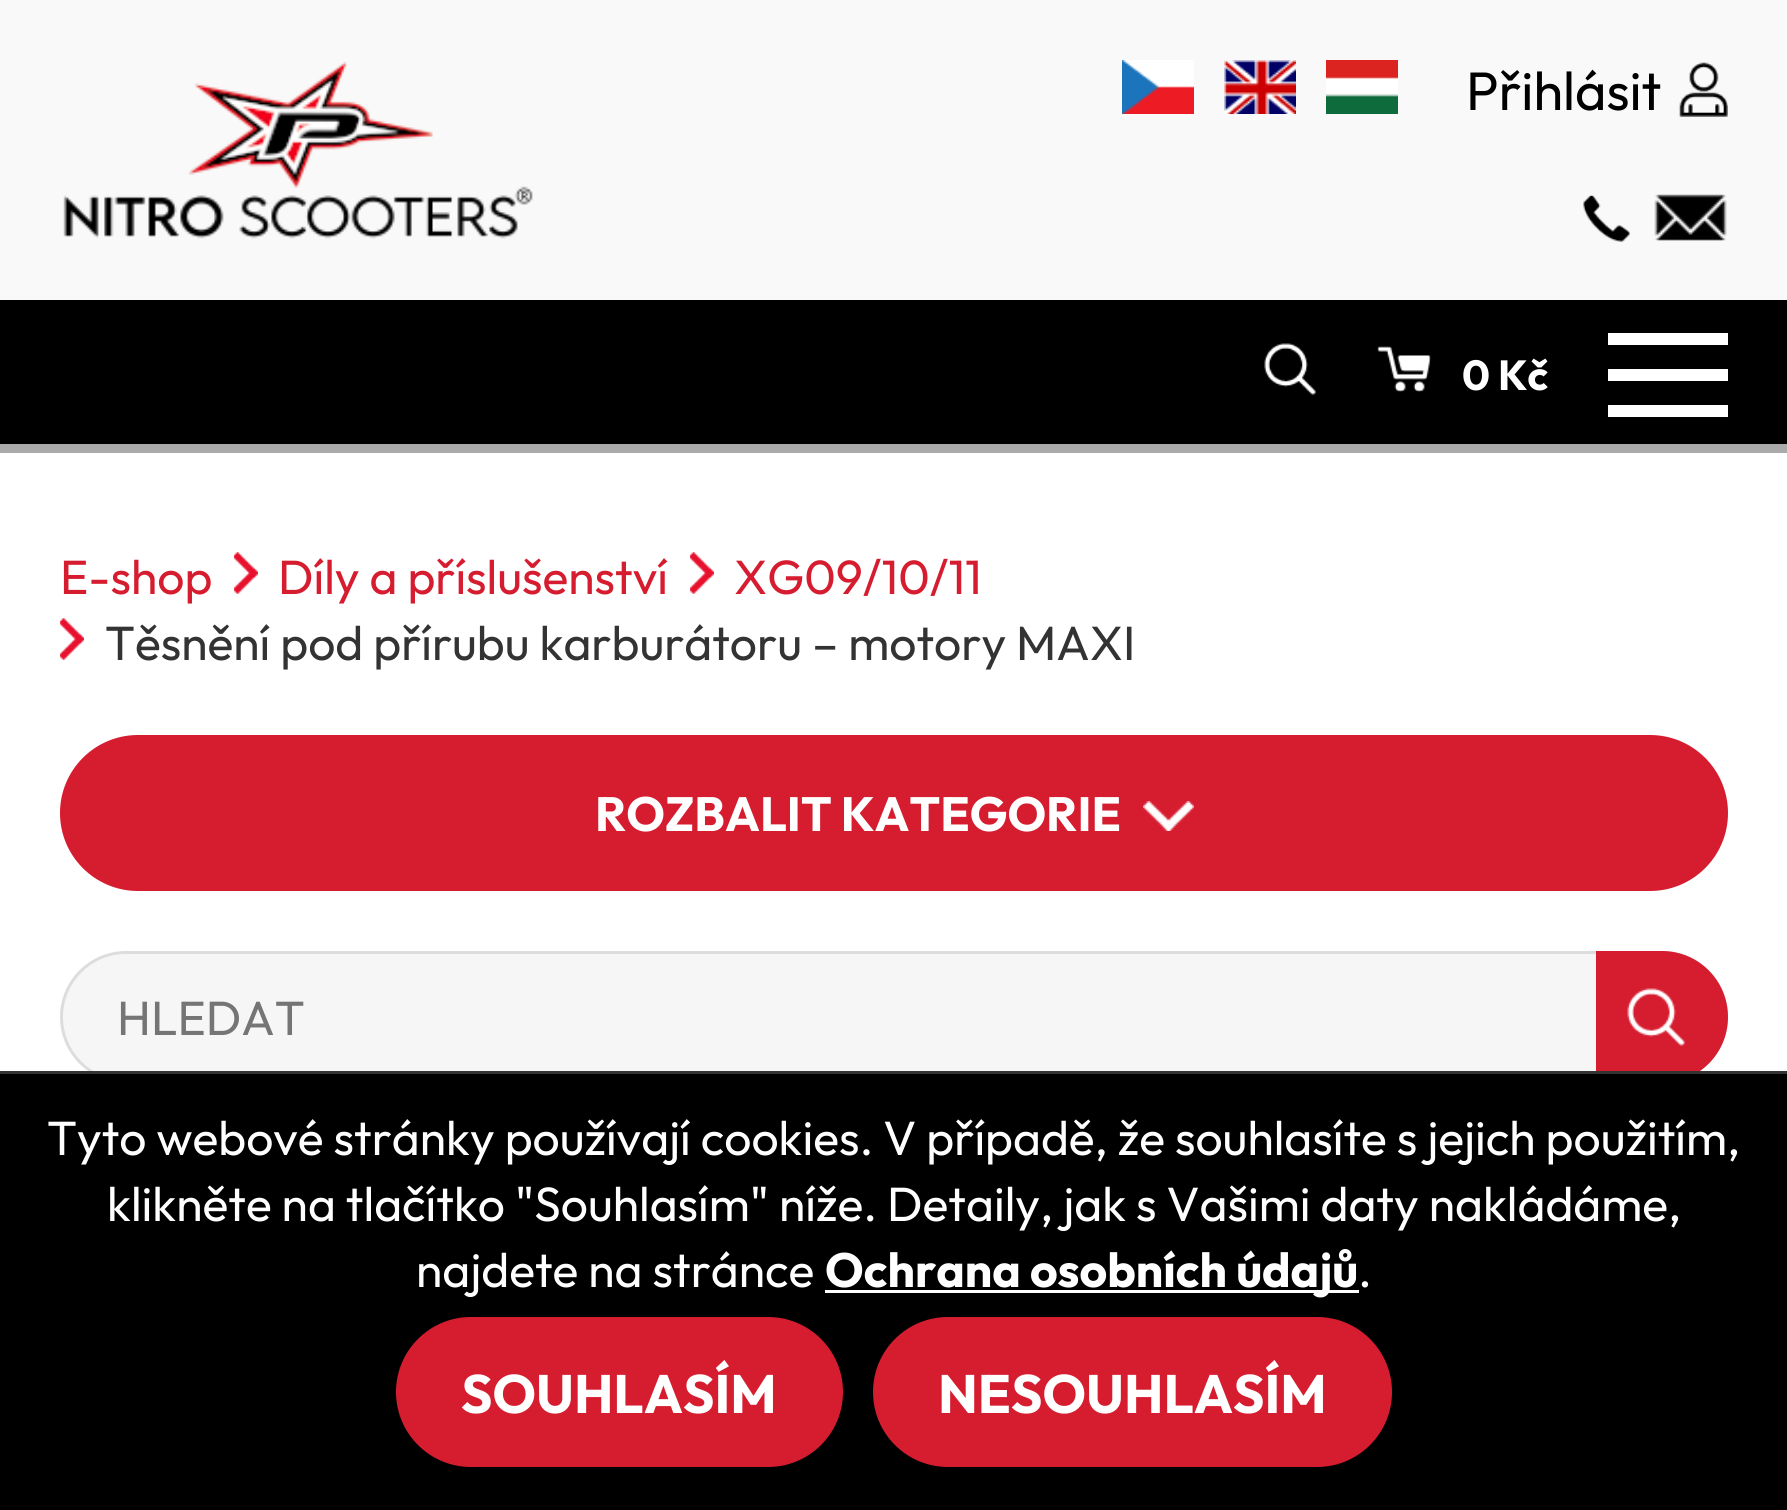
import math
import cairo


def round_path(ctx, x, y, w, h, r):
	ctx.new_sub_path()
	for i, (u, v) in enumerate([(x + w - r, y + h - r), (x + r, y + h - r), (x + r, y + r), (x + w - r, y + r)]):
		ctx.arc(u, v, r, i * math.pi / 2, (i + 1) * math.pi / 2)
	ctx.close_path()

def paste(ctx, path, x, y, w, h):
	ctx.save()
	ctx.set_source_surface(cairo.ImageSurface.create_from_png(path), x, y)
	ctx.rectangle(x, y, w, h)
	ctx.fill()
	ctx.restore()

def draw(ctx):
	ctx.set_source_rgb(1, 1, 1)
	ctx.paint()
	ctx.set_source_rgb(0.976, 0.976, 0.976)
	ctx.rectangle(0, 0, 1787, 300)
	ctx.fill()
	paste(ctx, 'media/1.png', 63, 61, 470, 178)
	paste(ctx, 'media/2.png', 1122, 60, 72, 54)
	paste(ctx, 'media/3.png', 1224, 60, 72, 54)
	paste(ctx, 'media/4.png', 1326, 60, 72, 54)
	ctx.select_font_face('Outfit')
	ctx.set_font_size(54)
	ctx.set_source_rgb(0, 0, 0)
	ctx.move_to(1466, 110)
	ctx.show_text('Přihlásit')
	paste(ctx, 'media/5.png', 1679, 62, 49, 55)
	paste(ctx, 'media/6.png', 1583, 195, 47, 47)
	paste(ctx, 'media/7.png', 1654, 194, 73, 47)
	ctx.rectangle(0, 300, 1787, 144)
	ctx.fill()
	ctx.set_source_rgb(0.667, 0.667, 0.667)
	ctx.rectangle(0, 444, 1787, 9)
	ctx.fill()
	paste(ctx, 'media/8.png', 1264, 343, 52, 52)
	paste(ctx, 'media/9.png', 1377, 346, 54, 46)
	ctx.select_font_face('Outfit', cairo.FONT_SLANT_NORMAL, cairo.FONT_WEIGHT_BOLD)
	ctx.set_font_size(42)
	ctx.set_source_rgb(1, 1, 1)
	ctx.move_to(1462, 390)
	ctx.show_text('0 Kč')
	ctx.rectangle(1608, 333, 120, 12)
	ctx.rectangle(1608, 369, 120, 12)
	ctx.rectangle(1608, 405, 120, 12)
	ctx.fill()
	ctx.select_font_face('Outfit')
	ctx.set_font_size(48)
	ctx.set_source_rgb(0.839, 0.114, 0.188)
	ctx.move_to(60, 594)
	ctx.show_text('E-shop')
	paste(ctx, 'media/10.png', 234, 552, 24, 42)
	ctx.move_to(278, 594)
	ctx.show_text('Díly a příslušenství')
	paste(ctx, 'media/10.png', 690, 552, 24, 42)
	ctx.move_to(734, 594)
	ctx.show_text('XG09/10/11')
	paste(ctx, 'media/10.png', 60, 618, 24, 42)
	ctx.set_source_rgb(0.2, 0.2, 0.2)
	ctx.move_to(105, 660)
	ctx.show_text('Těsnění pod přírubu karburátoru – motory MAXI')
	ctx.set_source_rgb(0.839, 0.114, 0.188)
	round_path(ctx, 60, 735, 1668, 156, 78)
	ctx.fill()
	ctx.select_font_face('Outfit', cairo.FONT_SLANT_NORMAL, cairo.FONT_WEIGHT_BOLD)
	ctx.set_source_rgb(1, 1, 1)
	ctx.move_to(595, 831)
	ctx.show_text('ROZBALIT KATEGORIE')
	paste(ctx, 'media/11.png', 1143, 801, 51, 30)
	ctx.set_source_rgb(0.961, 0.961, 0.961)
	round_path(ctx, 61.5, 952.5, 1665, 129, 64.5)
	ctx.fill_preserve()
	ctx.set_source_rgb(0.867, 0.867, 0.867)
	ctx.set_line_width(3)
	ctx.stroke()
	ctx.select_font_face('Outfit')
	ctx.set_source_rgb(0.459, 0.459, 0.459)
	ctx.move_to(117, 1035)
	ctx.show_text('HLEDAT')
	ctx.set_source_rgb(0.839, 0.114, 0.188)
	ctx.new_path()
	ctx.move_to(1596, 951)
	ctx.line_to(1662, 951)
	ctx.curve_to(1698.5, 951, 1728, 980.5, 1728, 1017)
	ctx.curve_to(1728, 1053.5, 1698.5, 1083, 1662, 1083)
	ctx.line_to(1596, 1083)
	ctx.close_path()
	ctx.fill()
	paste(ctx, 'media/12.png', 1627, 988, 58, 58)
	ctx.set_source_rgb(0, 0, 0)
	ctx.rectangle(0, 1074, 1787, 436)
	ctx.fill()
	ctx.set_source_rgb(0.2, 0.2, 0.2)
	ctx.rectangle(0, 1071, 1787, 3)
	ctx.fill()
	ctx.set_source_rgb(1, 1, 1)
	for x, y, s in [
		(47, 1155, 'Tyto webové stránky používají cookies. V případě, že souhlasíte s jejich použitím,'),
		(107, 1221, 'klikněte na tlačítko "Souhlasím" níže. Detaily, jak s Vašimi daty nakládáme,'),
		(416, 1287, 'najdete na stránce'),
	]:
		ctx.move_to(x, y)
		ctx.show_text(s)
	ctx.rectangle(825, 1290, 534, 3)
	ctx.fill()
	ctx.select_font_face('Outfit', cairo.FONT_SLANT_NORMAL, cairo.FONT_WEIGHT_BOLD)
	ctx.move_to(825, 1287)
	ctx.show_text('Ochrana osobních údajů')
	ctx.select_font_face('Outfit')
	ctx.move_to(1358, 1287)
	ctx.show_text('.')
	ctx.set_source_rgb(0.839, 0.114, 0.188)
	round_path(ctx, 399, 1320, 441, 144, 72)
	ctx.fill_preserve()
	ctx.set_line_width(6)
	ctx.stroke()
	ctx.select_font_face('Outfit', cairo.FONT_SLANT_NORMAL, cairo.FONT_WEIGHT_BOLD)
	ctx.set_font_size(54)
	ctx.set_source_rgb(1, 1, 1)
	ctx.move_to(461, 1413)
	ctx.show_text('SOUHLASÍM')
	ctx.set_source_rgb(0.839, 0.114, 0.188)
	round_path(ctx, 876, 1320, 513, 144, 72)
	ctx.fill_preserve()
	ctx.stroke()
	ctx.set_source_rgb(1, 1, 1)
	ctx.move_to(938, 1413)
	ctx.show_text('NESOUHLASÍM')


surface = cairo.ImageSurface(cairo.FORMAT_RGB24, 1787, 1510)
ctx = cairo.Context(surface)
options = cairo.FontOptions()
options.set_hint_metrics(cairo.HINT_METRICS_OFF)
options.set_hint_style(cairo.HINT_STYLE_NONE)
ctx.set_font_options(options)
ctx.set_miter_limit(4)
draw(ctx)
surface.write_to_png('image.png')
